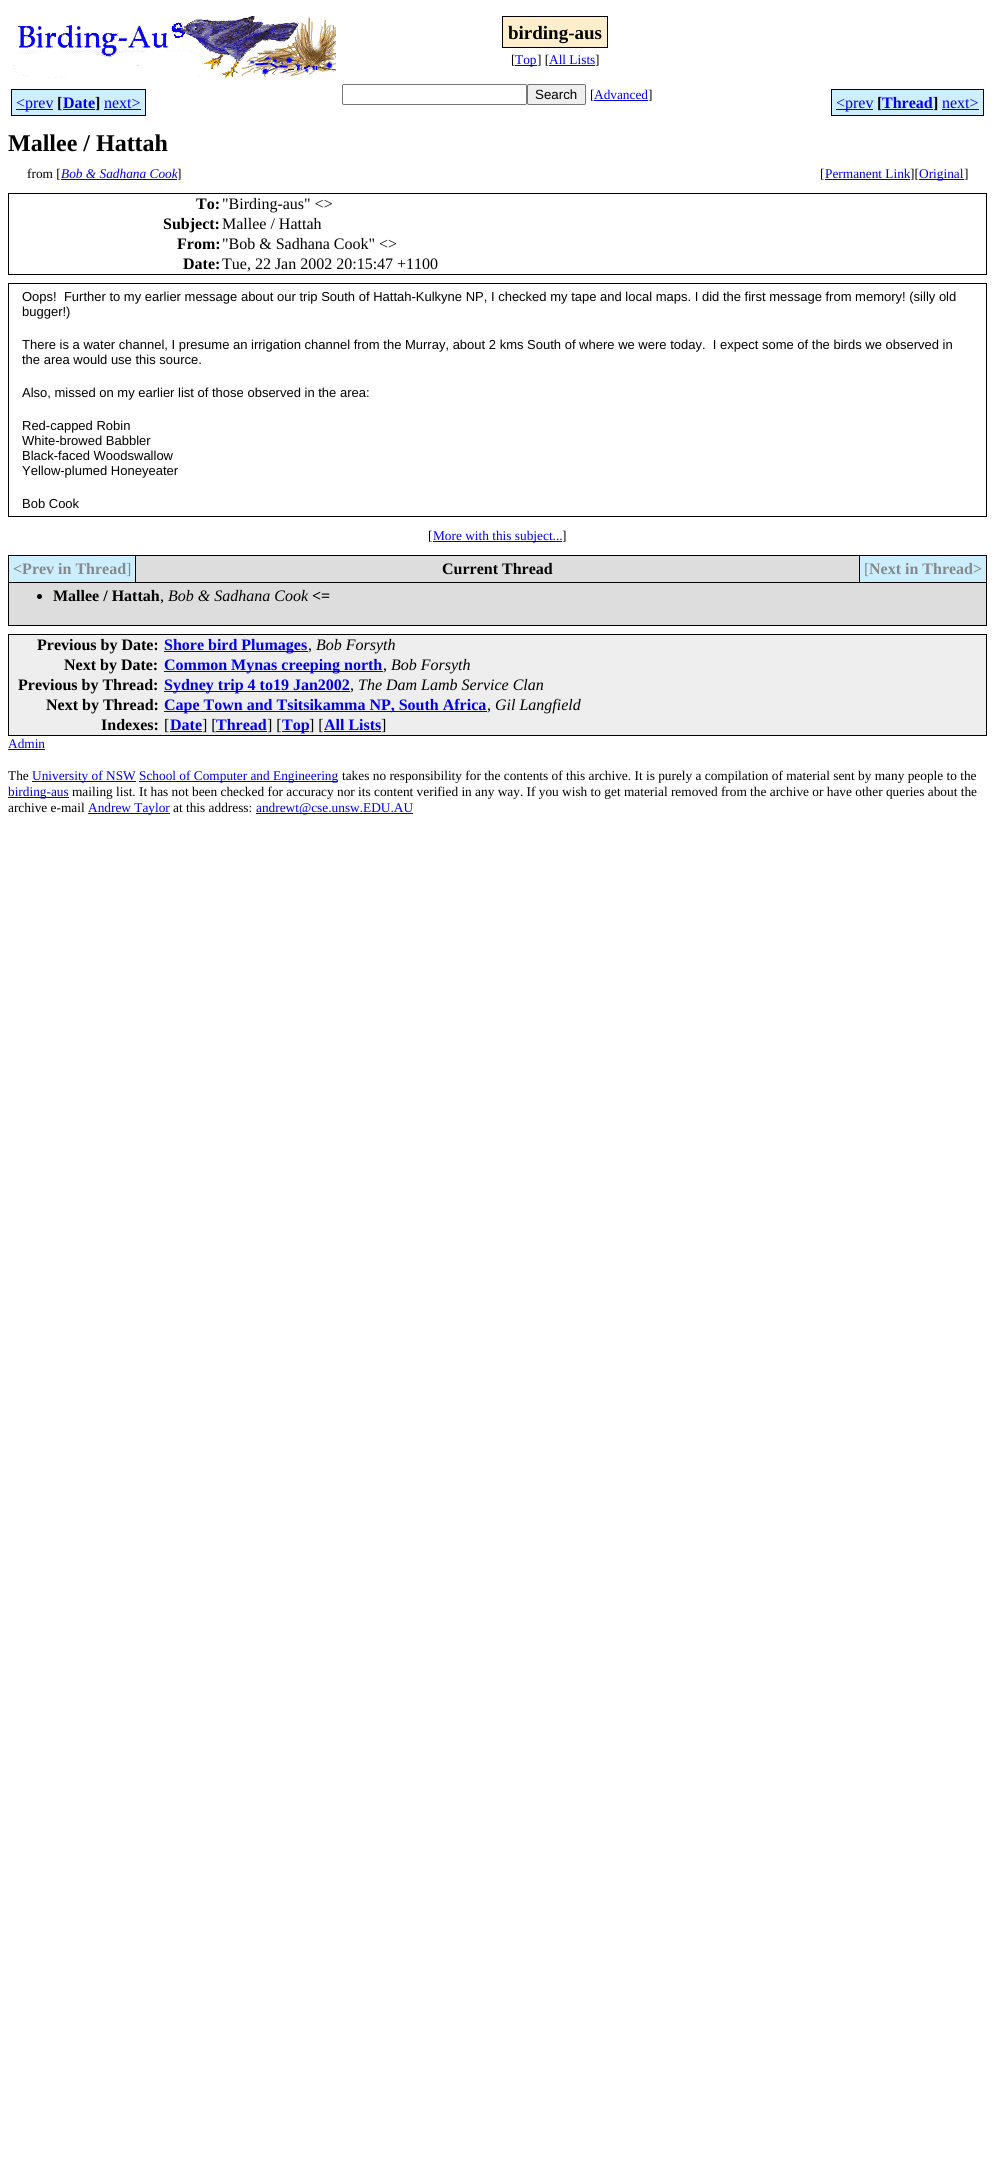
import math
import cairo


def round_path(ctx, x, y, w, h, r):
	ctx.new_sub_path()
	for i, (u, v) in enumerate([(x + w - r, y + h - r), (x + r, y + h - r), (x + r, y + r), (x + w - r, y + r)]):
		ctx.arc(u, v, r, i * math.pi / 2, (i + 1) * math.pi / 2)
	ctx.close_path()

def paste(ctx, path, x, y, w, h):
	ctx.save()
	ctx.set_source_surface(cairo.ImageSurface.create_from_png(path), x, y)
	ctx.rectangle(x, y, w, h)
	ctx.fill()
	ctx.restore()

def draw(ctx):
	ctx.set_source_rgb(1, 1, 1)
	ctx.paint()
	paste(ctx, 'media/1.png', 13, 16, 323, 62)
	ctx.set_source_rgb(1, 0.933, 0.8)
	ctx.rectangle(502.5, 16.5, 105, 31)
	ctx.fill_preserve()
	ctx.set_source_rgb(0, 0, 0)
	ctx.set_line_width(1)
	ctx.stroke()
	ctx.select_font_face('Liberation Serif', cairo.FONT_SLANT_NORMAL, cairo.FONT_WEIGHT_BOLD)
	ctx.set_font_size(19)
	ctx.move_to(508, 39)
	ctx.show_text('birding-aus')
	ctx.select_font_face('Liberation Serif')
	ctx.set_font_size(13.33)
	ctx.move_to(511, 64)
	ctx.show_text('[')
	ctx.set_source_rgb(0, 0, 0.933)
	ctx.rectangle(515, 65, 22, 1)
	ctx.fill()
	ctx.move_to(515, 64)
	ctx.show_text('Top')
	ctx.set_source_rgb(0, 0, 0)
	ctx.move_to(537, 64)
	ctx.show_text('] [')
	ctx.set_source_rgb(0, 0, 0.933)
	ctx.move_to(549, 64)
	ctx.show_text('All Lists')
	ctx.set_source_rgb(0, 0, 0)
	ctx.move_to(595, 64)
	ctx.show_text(']')
	ctx.set_source_rgb(0, 0, 0.933)
	ctx.rectangle(549, 65, 46, 1)
	ctx.fill()
	ctx.set_source_rgb(0.8, 0.933, 1)
	ctx.rectangle(12, 90, 41, 25)
	ctx.fill()
	ctx.set_source_rgb(0, 0, 0.933)
	ctx.rectangle(16, 109, 37, 1)
	ctx.fill()
	ctx.set_source_rgb(0.8, 0.933, 1)
	ctx.rectangle(53, 89, 10, 27)
	ctx.fill()
	ctx.set_font_size(16)
	ctx.set_source_rgb(0, 0, 0.933)
	ctx.move_to(16, 108)
	ctx.show_text('<prev')
	ctx.set_source_rgb(0, 0, 0)
	ctx.rectangle(11, 89, 42, 1)
	ctx.rectangle(11, 115, 42, 1)
	ctx.rectangle(11, 89, 1, 27)
	ctx.rectangle(53, 115, 42, 1)
	ctx.fill()
	ctx.select_font_face('Liberation Serif', cairo.FONT_SLANT_NORMAL, cairo.FONT_WEIGHT_BOLD)
	ctx.move_to(57, 108)
	ctx.show_text('[')
	ctx.set_source_rgb(0.8, 0.933, 1)
	ctx.rectangle(63, 90, 32, 25)
	ctx.fill()
	ctx.set_source_rgb(0, 0, 0.933)
	ctx.rectangle(63, 109, 32, 1)
	ctx.fill()
	ctx.move_to(63, 108)
	ctx.show_text('Date')
	ctx.set_source_rgb(0, 0, 0)
	ctx.rectangle(53, 89, 42, 1)
	ctx.fill()
	ctx.set_source_rgb(0.8, 0.933, 1)
	ctx.rectangle(95, 89, 9, 27)
	ctx.fill()
	ctx.set_source_rgb(0, 0, 0)
	ctx.rectangle(95, 89, 51, 1)
	ctx.fill()
	ctx.move_to(95, 108)
	ctx.show_text(']')
	ctx.rectangle(95, 115, 9, 1)
	ctx.fill()
	ctx.set_source_rgb(0.8, 0.933, 1)
	ctx.rectangle(104, 90, 41, 25)
	ctx.fill()
	ctx.select_font_face('Liberation Serif')
	ctx.set_source_rgb(0, 0, 0.933)
	ctx.move_to(104, 108)
	ctx.show_text('next>')
	ctx.set_source_rgb(0, 0, 0)
	ctx.rectangle(145, 89, 1, 27)
	ctx.rectangle(104, 115, 42, 1)
	ctx.fill()
	ctx.set_source_rgb(0, 0, 0.933)
	ctx.rectangle(104, 109, 37, 1)
	ctx.fill()
	round_path(ctx, 342.5, 84.5, 184, 20, 1.5)
	ctx.set_source_rgb(0.463, 0.463, 0.463)
	ctx.stroke()
	ctx.set_source_rgb(0.937, 0.937, 0.937)
	round_path(ctx, 527.5, 84.5, 58, 20, 1.5)
	ctx.fill_preserve()
	ctx.set_source_rgb(0.463, 0.463, 0.463)
	ctx.stroke()
	ctx.select_font_face('Liberation Sans')
	ctx.set_font_size(13.33)
	ctx.set_source_rgb(0, 0, 0)
	ctx.move_to(535, 99)
	ctx.show_text('Search')
	ctx.select_font_face('Liberation Serif')
	ctx.move_to(590, 99)
	ctx.show_text('[')
	ctx.set_source_rgb(0, 0, 0.933)
	ctx.rectangle(594, 100, 54, 1)
	ctx.fill()
	ctx.move_to(594, 99)
	ctx.show_text('Advanced')
	ctx.set_source_rgb(0, 0, 0)
	ctx.move_to(648, 99)
	ctx.show_text(']')
	ctx.set_source_rgb(0.8, 0.933, 1)
	ctx.rectangle(832, 90, 41, 25)
	ctx.fill()
	ctx.set_source_rgb(0, 0, 0.933)
	ctx.rectangle(836, 109, 37, 1)
	ctx.fill()
	ctx.set_source_rgb(0.8, 0.933, 1)
	ctx.rectangle(873, 89, 9, 27)
	ctx.fill()
	ctx.set_font_size(16)
	ctx.set_source_rgb(0, 0, 0.933)
	ctx.move_to(836, 108)
	ctx.show_text('<prev')
	ctx.set_source_rgb(0, 0, 0)
	ctx.rectangle(831, 89, 42, 1)
	ctx.rectangle(831, 115, 42, 1)
	ctx.rectangle(831, 89, 1, 27)
	ctx.rectangle(873, 115, 60, 1)
	ctx.fill()
	ctx.select_font_face('Liberation Serif', cairo.FONT_SLANT_NORMAL, cairo.FONT_WEIGHT_BOLD)
	ctx.move_to(877, 108)
	ctx.show_text('[')
	ctx.set_source_rgb(0.8, 0.933, 1)
	ctx.rectangle(882, 90, 51, 25)
	ctx.fill()
	ctx.set_source_rgb(0, 0, 0.933)
	ctx.rectangle(882, 109, 51, 1)
	ctx.fill()
	ctx.move_to(882, 108)
	ctx.show_text('Thread')
	ctx.set_source_rgb(0, 0, 0)
	ctx.rectangle(873, 89, 60, 1)
	ctx.fill()
	ctx.set_source_rgb(0.8, 0.933, 1)
	ctx.rectangle(933, 89, 9, 27)
	ctx.fill()
	ctx.set_source_rgb(0, 0, 0)
	ctx.rectangle(933, 89, 51, 1)
	ctx.fill()
	ctx.move_to(933, 108)
	ctx.show_text(']')
	ctx.rectangle(933, 115, 9, 1)
	ctx.fill()
	ctx.set_source_rgb(0.8, 0.933, 1)
	ctx.rectangle(942, 90, 41, 25)
	ctx.fill()
	ctx.select_font_face('Liberation Serif')
	ctx.set_source_rgb(0, 0, 0.933)
	ctx.move_to(942, 108)
	ctx.show_text('next>')
	ctx.set_source_rgb(0, 0, 0)
	ctx.rectangle(983, 89, 1, 27)
	ctx.rectangle(942, 115, 42, 1)
	ctx.fill()
	ctx.set_source_rgb(0, 0, 0.933)
	ctx.rectangle(942, 109, 37, 1)
	ctx.fill()
	ctx.select_font_face('Liberation Serif', cairo.FONT_SLANT_NORMAL, cairo.FONT_WEIGHT_BOLD)
	ctx.set_font_size(24)
	ctx.set_source_rgb(0, 0, 0)
	ctx.move_to(8, 151)
	ctx.show_text('Mallee / Hattah')
	ctx.select_font_face('Liberation Serif')
	ctx.set_font_size(13.33)
	ctx.move_to(27, 178)
	ctx.show_text('from [')
	ctx.set_source_rgb(0, 0, 0.933)
	ctx.rectangle(61, 179, 116, 1)
	ctx.fill()
	ctx.select_font_face('Liberation Serif', cairo.FONT_SLANT_ITALIC)
	ctx.move_to(61, 178)
	ctx.show_text('Bob & Sadhana Cook')
	ctx.select_font_face('Liberation Serif')
	ctx.set_source_rgb(0, 0, 0)
	ctx.move_to(177, 178)
	ctx.show_text(']')
	ctx.move_to(820, 178)
	ctx.show_text('[')
	ctx.set_source_rgb(0, 0, 0.933)
	ctx.rectangle(825, 179, 85, 1)
	ctx.fill()
	ctx.move_to(825, 178)
	ctx.show_text('Permanent Link')
	ctx.set_source_rgb(0, 0, 0)
	ctx.move_to(910, 178)
	ctx.show_text('][')
	ctx.set_source_rgb(0, 0, 0.933)
	ctx.rectangle(919, 179, 45, 1)
	ctx.fill()
	ctx.move_to(919, 178)
	ctx.show_text('Original')
	ctx.set_source_rgb(0, 0, 0)
	ctx.move_to(964, 178)
	ctx.show_text(']')
	ctx.rectangle(8.5, 193.5, 978, 81)
	ctx.stroke()
	ctx.select_font_face('Liberation Serif', cairo.FONT_SLANT_NORMAL, cairo.FONT_WEIGHT_BOLD)
	ctx.set_font_size(16)
	ctx.move_to(196, 209)
	ctx.show_text('To:')
	ctx.select_font_face('Liberation Serif')
	ctx.move_to(222, 209)
	ctx.show_text('"Birding-aus" <>')
	ctx.select_font_face('Liberation Serif', cairo.FONT_SLANT_NORMAL, cairo.FONT_WEIGHT_BOLD)
	ctx.move_to(163, 229)
	ctx.show_text('Subject:')
	ctx.select_font_face('Liberation Serif')
	ctx.move_to(222, 229)
	ctx.show_text('Mallee / Hattah')
	ctx.select_font_face('Liberation Serif', cairo.FONT_SLANT_NORMAL, cairo.FONT_WEIGHT_BOLD)
	ctx.move_to(177, 249)
	ctx.show_text('From:')
	ctx.select_font_face('Liberation Serif')
	ctx.move_to(222, 249)
	ctx.show_text('"Bob & Sadhana Cook" <>')
	ctx.select_font_face('Liberation Serif', cairo.FONT_SLANT_NORMAL, cairo.FONT_WEIGHT_BOLD)
	ctx.move_to(183, 269)
	ctx.show_text('Date:')
	ctx.select_font_face('Liberation Serif')
	ctx.move_to(222, 269)
	ctx.show_text('Tue, 22 Jan 2002 20:15:47 +1100')
	ctx.rectangle(8.5, 283.5, 978, 233)
	ctx.stroke()
	ctx.select_font_face('Liberation Sans')
	ctx.set_font_size(13)
	for x, y, s in [
		(22, 301, 'Oops!  Further to my earlier message about our trip South of Hattah-Kulkyne NP, I checked my tape and local maps. I did the first message from memory! (silly old'),
		(22, 316, 'bugger!)'),
		(22, 349, 'There is a water channel, I presume an irrigation channel from the Murray, about 2 kms South of where we were today.  I expect some of the birds we observed in'),
		(22, 364, 'the area would use this source.'),
		(22, 397, 'Also, missed on my earlier list of those observed in the area:'),
		(22, 430, 'Red-capped Robin'),
		(22, 445, 'White-browed Babbler'),
		(22, 460, 'Black-faced Woodswallow'),
		(22, 475, 'Yellow-plumed Honeyeater'),
		(22, 508, 'Bob Cook'),
	]:
		ctx.move_to(x, y)
		ctx.show_text(s)
	ctx.select_font_face('Liberation Serif')
	ctx.set_font_size(13.33)
	ctx.move_to(428, 540)
	ctx.show_text('[')
	ctx.set_source_rgb(0, 0, 0.933)
	ctx.rectangle(433, 541, 129, 1)
	ctx.fill()
	ctx.move_to(433, 540)
	ctx.show_text('More with this subject...')
	ctx.set_source_rgb(0, 0, 0)
	ctx.move_to(562, 540)
	ctx.show_text(']')
	ctx.rectangle(8, 555, 979, 71)
	ctx.fill()
	ctx.set_source_rgb(0.8, 0.933, 1)
	ctx.rectangle(9, 556, 126, 26)
	ctx.fill()
	ctx.select_font_face('Liberation Serif', cairo.FONT_SLANT_NORMAL, cairo.FONT_WEIGHT_BOLD)
	ctx.set_font_size(16)
	ctx.set_source_rgb(0.533, 0.533, 0.533)
	ctx.move_to(13, 574)
	ctx.show_text('<Prev in Thread')
	ctx.select_font_face('Liberation Serif')
	ctx.move_to(126, 574)
	ctx.show_text(']')
	ctx.set_source_rgb(0.867, 0.867, 0.867)
	ctx.rectangle(136, 556, 723, 26)
	ctx.fill()
	ctx.select_font_face('Liberation Serif', cairo.FONT_SLANT_NORMAL, cairo.FONT_WEIGHT_BOLD)
	ctx.set_source_rgb(0, 0, 0)
	ctx.move_to(442, 574)
	ctx.show_text('Current Thread')
	ctx.set_source_rgb(0.8, 0.933, 1)
	ctx.rectangle(860, 556, 126, 26)
	ctx.fill()
	ctx.select_font_face('Liberation Serif')
	ctx.set_source_rgb(0.533, 0.533, 0.533)
	ctx.move_to(864, 574)
	ctx.show_text('[')
	ctx.select_font_face('Liberation Serif', cairo.FONT_SLANT_NORMAL, cairo.FONT_WEIGHT_BOLD)
	ctx.move_to(869, 574)
	ctx.show_text('Next in Thread>')
	ctx.set_source_rgb(0.867, 0.867, 0.867)
	ctx.rectangle(9, 583, 977, 42)
	ctx.fill()
	ctx.set_source_rgb(0, 0, 0)
	ctx.arc(39.5, 596.5, 2.5, 0, 2 * math.pi)
	ctx.fill()
	ctx.move_to(53, 601)
	ctx.show_text('Mallee / Hattah')
	ctx.select_font_face('Liberation Serif', cairo.FONT_SLANT_ITALIC)
	ctx.move_to(168, 601)
	ctx.show_text('Bob & Sadhana Cook')
	ctx.select_font_face('Liberation Serif', cairo.FONT_SLANT_NORMAL, cairo.FONT_WEIGHT_BOLD)
	ctx.move_to(312, 601)
	ctx.show_text('<=')
	ctx.select_font_face('Liberation Serif')
	ctx.move_to(160, 601)
	ctx.show_text(',')
	ctx.set_source_rgb(0.933, 0.933, 0.933)
	ctx.rectangle(8.5, 634.5, 978, 101)
	ctx.fill_preserve()
	ctx.set_source_rgb(0, 0, 0)
	ctx.stroke()
	ctx.select_font_face('Liberation Serif', cairo.FONT_SLANT_NORMAL, cairo.FONT_WEIGHT_BOLD)
	ctx.move_to(37, 650)
	ctx.show_text('Previous by Date:')
	ctx.set_source_rgb(0, 0, 0.933)
	ctx.rectangle(164, 651, 144, 1)
	ctx.fill()
	ctx.move_to(164, 650)
	ctx.show_text('Shore bird Plumages')
	ctx.select_font_face('Liberation Serif')
	ctx.set_source_rgb(0, 0, 0)
	ctx.move_to(308, 650)
	ctx.show_text(',')
	ctx.select_font_face('Liberation Serif', cairo.FONT_SLANT_ITALIC)
	ctx.move_to(316, 650)
	ctx.show_text('Bob Forsyth')
	ctx.select_font_face('Liberation Serif', cairo.FONT_SLANT_NORMAL, cairo.FONT_WEIGHT_BOLD)
	ctx.move_to(64, 670)
	ctx.show_text('Next by Date:')
	ctx.set_source_rgb(0, 0, 0.933)
	ctx.rectangle(164, 671, 219, 1)
	ctx.fill()
	ctx.move_to(164, 670)
	ctx.show_text('Common Mynas creeping north')
	ctx.select_font_face('Liberation Serif')
	ctx.set_source_rgb(0, 0, 0)
	ctx.move_to(383, 670)
	ctx.show_text(',')
	ctx.select_font_face('Liberation Serif', cairo.FONT_SLANT_ITALIC)
	ctx.move_to(391, 670)
	ctx.show_text('Bob Forsyth')
	ctx.select_font_face('Liberation Serif', cairo.FONT_SLANT_NORMAL, cairo.FONT_WEIGHT_BOLD)
	ctx.move_to(18, 690)
	ctx.show_text('Previous by Thread:')
	ctx.set_source_rgb(0, 0, 0.933)
	ctx.rectangle(164, 691, 186, 1)
	ctx.fill()
	ctx.move_to(164, 690)
	ctx.show_text('Sydney trip 4 to19 Jan2002')
	ctx.select_font_face('Liberation Serif')
	ctx.set_source_rgb(0, 0, 0)
	ctx.move_to(350, 690)
	ctx.show_text(',')
	ctx.select_font_face('Liberation Serif', cairo.FONT_SLANT_ITALIC)
	ctx.move_to(358, 690)
	ctx.show_text('The Dam Lamb Service Clan')
	ctx.select_font_face('Liberation Serif', cairo.FONT_SLANT_NORMAL, cairo.FONT_WEIGHT_BOLD)
	ctx.move_to(46, 710)
	ctx.show_text('Next by Thread:')
	ctx.set_source_rgb(0, 0, 0.933)
	ctx.rectangle(164, 711, 323, 1)
	ctx.fill()
	ctx.move_to(164, 710)
	ctx.show_text('Cape Town and Tsitsikamma NP, South Africa')
	ctx.select_font_face('Liberation Serif')
	ctx.set_source_rgb(0, 0, 0)
	ctx.move_to(487, 710)
	ctx.show_text(',')
	ctx.select_font_face('Liberation Serif', cairo.FONT_SLANT_ITALIC)
	ctx.move_to(495, 710)
	ctx.show_text('Gil Langfield')
	ctx.select_font_face('Liberation Serif', cairo.FONT_SLANT_NORMAL, cairo.FONT_WEIGHT_BOLD)
	ctx.move_to(101, 730)
	ctx.show_text('Indexes:')
	ctx.select_font_face('Liberation Serif')
	ctx.move_to(164, 730)
	ctx.show_text('[')
	ctx.select_font_face('Liberation Serif', cairo.FONT_SLANT_NORMAL, cairo.FONT_WEIGHT_BOLD)
	ctx.set_source_rgb(0, 0, 0.933)
	ctx.move_to(170, 730)
	ctx.show_text('Date')
	ctx.rectangle(170, 731, 32, 1)
	ctx.fill()
	ctx.select_font_face('Liberation Serif')
	ctx.set_source_rgb(0, 0, 0)
	ctx.move_to(202, 730)
	ctx.show_text('] [')
	ctx.select_font_face('Liberation Serif', cairo.FONT_SLANT_NORMAL, cairo.FONT_WEIGHT_BOLD)
	ctx.set_source_rgb(0, 0, 0.933)
	ctx.move_to(216, 730)
	ctx.show_text('Thread')
	ctx.rectangle(216, 731, 51, 1)
	ctx.fill()
	ctx.select_font_face('Liberation Serif')
	ctx.set_source_rgb(0, 0, 0)
	ctx.move_to(267, 730)
	ctx.show_text('] [')
	ctx.set_source_rgb(0, 0, 0.933)
	ctx.rectangle(282, 731, 27, 1)
	ctx.fill()
	ctx.select_font_face('Liberation Serif', cairo.FONT_SLANT_NORMAL, cairo.FONT_WEIGHT_BOLD)
	ctx.move_to(282, 730)
	ctx.show_text('Top')
	ctx.select_font_face('Liberation Serif')
	ctx.set_source_rgb(0, 0, 0)
	ctx.move_to(309, 730)
	ctx.show_text('] [')
	ctx.select_font_face('Liberation Serif', cairo.FONT_SLANT_NORMAL, cairo.FONT_WEIGHT_BOLD)
	ctx.set_source_rgb(0, 0, 0.933)
	ctx.move_to(324, 730)
	ctx.show_text('All Lists')
	ctx.rectangle(324, 731, 57, 1)
	ctx.fill()
	ctx.select_font_face('Liberation Serif')
	ctx.set_source_rgb(0, 0, 0)
	ctx.move_to(381, 730)
	ctx.show_text(']')
	ctx.set_font_size(13.33)
	ctx.set_source_rgb(0, 0, 0.933)
	ctx.move_to(8, 748)
	ctx.show_text('Admin')
	ctx.rectangle(8, 749, 37, 1)
	ctx.fill()
	ctx.set_source_rgb(0, 0, 0)
	ctx.move_to(8, 780)
	ctx.show_text('The')
	ctx.set_source_rgb(0, 0, 0.933)
	ctx.rectangle(32, 781, 104, 1)
	ctx.fill()
	ctx.move_to(32, 780)
	ctx.show_text('University of NSW')
	ctx.rectangle(139, 781, 199, 1)
	ctx.fill()
	ctx.move_to(139, 780)
	ctx.show_text('School of Computer and Engineering')
	ctx.set_source_rgb(0, 0, 0)
	ctx.move_to(342, 780)
	ctx.show_text('takes no responsibility for the contents of this archive. It is purely a compilation of material sent by many people to the')
	ctx.set_source_rgb(0, 0, 0.933)
	ctx.rectangle(8, 797, 61, 1)
	ctx.fill()
	ctx.move_to(8, 796)
	ctx.show_text('birding-aus')
	ctx.set_source_rgb(0, 0, 0)
	ctx.move_to(72, 796)
	ctx.show_text('mailing list. It has not been checked for accuracy nor its content verified in any way. If you wish to get material removed from the archive or have other queries about the')
	ctx.move_to(8, 812)
	ctx.show_text('archive e-mail')
	ctx.set_source_rgb(0, 0, 0.933)
	ctx.rectangle(88, 813, 82, 1)
	ctx.fill()
	ctx.move_to(88, 812)
	ctx.show_text('Andrew Taylor')
	ctx.set_source_rgb(0, 0, 0)
	ctx.move_to(173, 812)
	ctx.show_text('at this address:')
	ctx.set_source_rgb(0, 0, 0.933)
	ctx.rectangle(256, 813, 157, 1)
	ctx.fill()
	ctx.move_to(256, 812)
	ctx.show_text('andrewt@cse.unsw.EDU.AU')


surface = cairo.ImageSurface(cairo.FORMAT_RGB24, 995, 2168)
ctx = cairo.Context(surface)
options = cairo.FontOptions()
options.set_hint_metrics(cairo.HINT_METRICS_OFF)
options.set_hint_style(cairo.HINT_STYLE_NONE)
ctx.set_font_options(options)
ctx.set_miter_limit(4)
draw(ctx)
surface.write_to_png('image.png')
